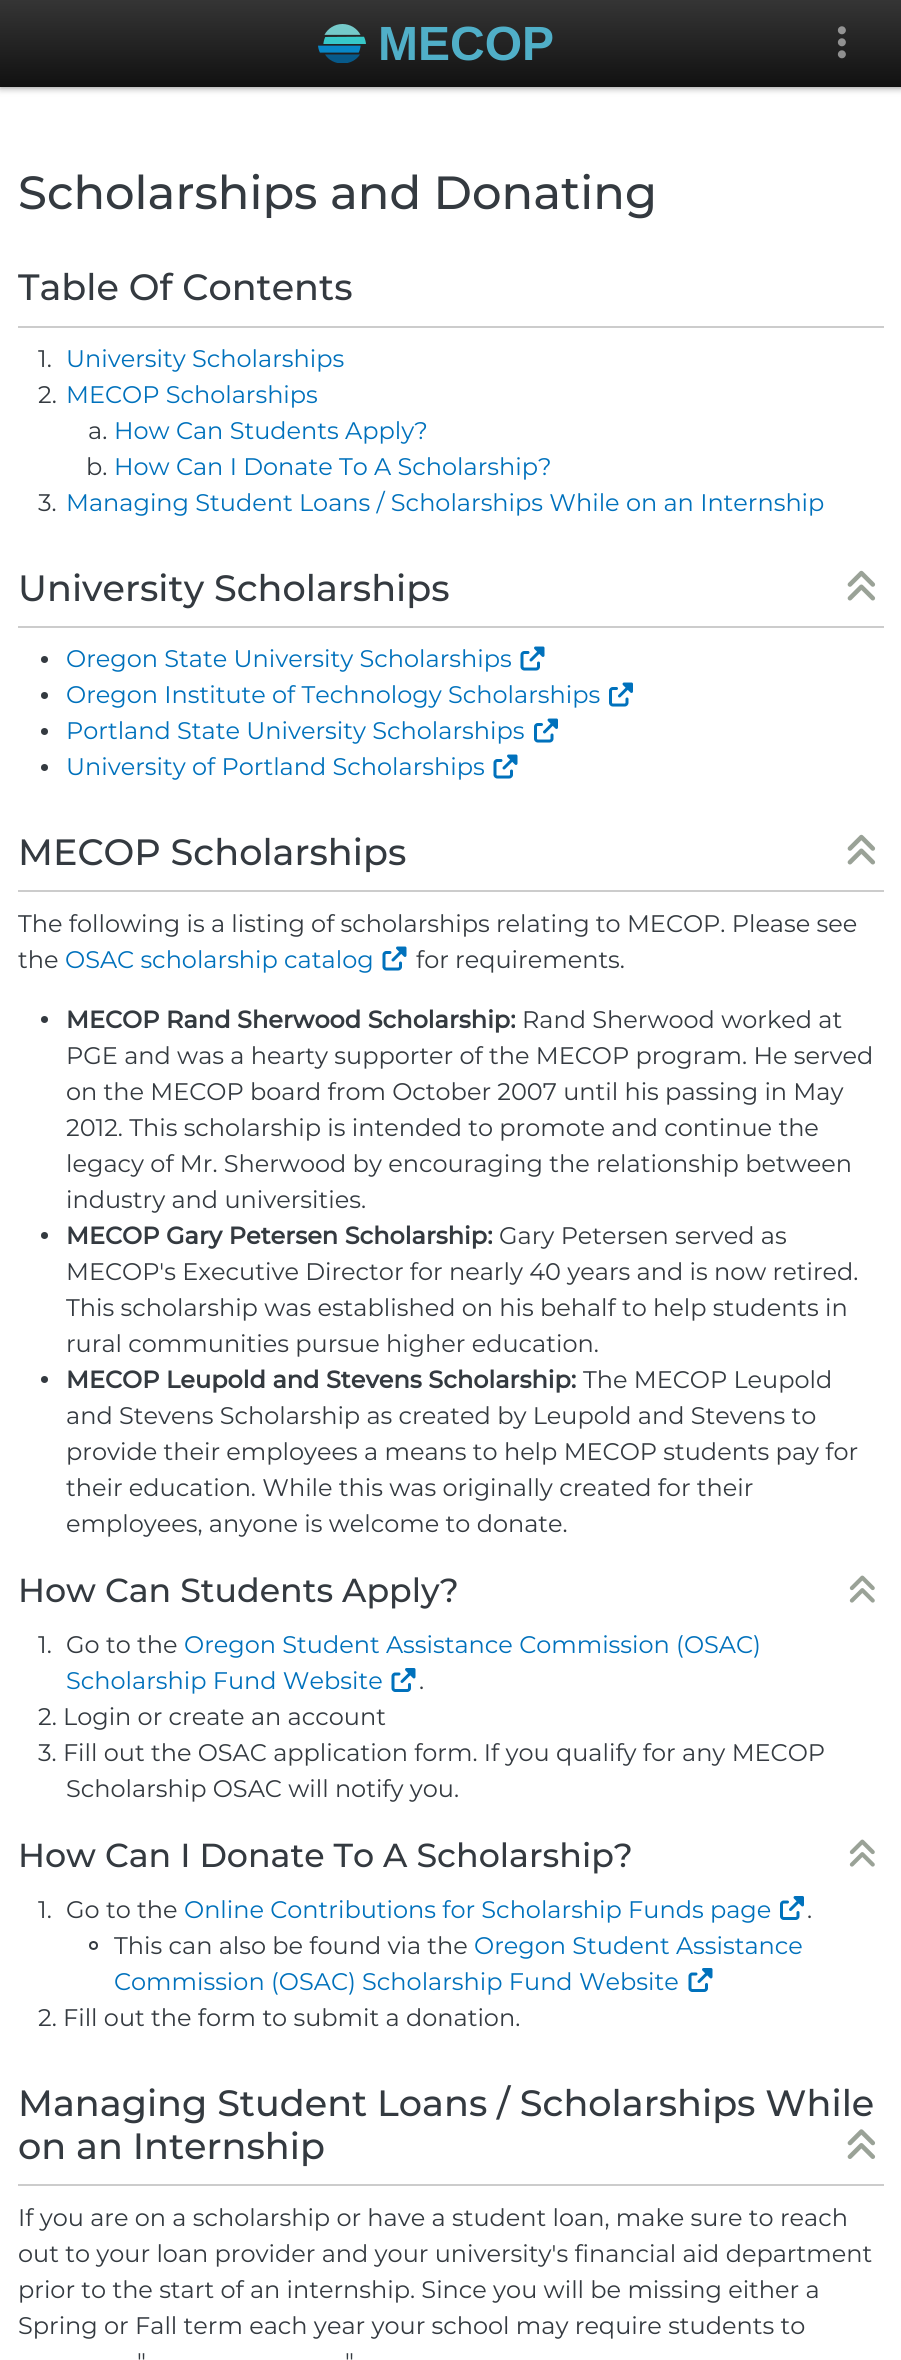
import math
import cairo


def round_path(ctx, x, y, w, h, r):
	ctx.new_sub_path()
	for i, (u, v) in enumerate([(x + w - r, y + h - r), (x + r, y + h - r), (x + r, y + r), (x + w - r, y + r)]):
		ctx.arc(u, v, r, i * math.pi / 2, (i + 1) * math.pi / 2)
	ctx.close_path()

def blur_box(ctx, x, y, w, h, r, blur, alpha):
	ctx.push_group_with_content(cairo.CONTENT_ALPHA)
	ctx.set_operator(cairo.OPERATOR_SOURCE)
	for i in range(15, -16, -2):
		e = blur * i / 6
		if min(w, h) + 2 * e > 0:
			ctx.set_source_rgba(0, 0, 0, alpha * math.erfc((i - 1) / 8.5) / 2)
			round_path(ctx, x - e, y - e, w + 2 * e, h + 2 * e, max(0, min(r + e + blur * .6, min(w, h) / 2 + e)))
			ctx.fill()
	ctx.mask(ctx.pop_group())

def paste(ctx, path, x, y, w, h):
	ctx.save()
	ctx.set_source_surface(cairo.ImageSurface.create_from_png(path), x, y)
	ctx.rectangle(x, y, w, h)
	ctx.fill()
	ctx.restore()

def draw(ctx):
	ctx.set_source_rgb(1, 1, 1)
	ctx.paint()
	ctx.set_source_rgb(0, 0, 0)
	blur_box(ctx, 0, 0, 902, 87, 0, 4, 0.5)
	gradient = cairo.LinearGradient(451, 0, 451, 87)
	gradient.add_color_stop_rgba(0, 0.208, 0.208, 0.208, 1)
	gradient.add_color_stop_rgba(1, 0.067, 0.067, 0.067, 1)
	ctx.set_source(gradient)
	ctx.rectangle(0, 0, 901, 87)
	ctx.fill()
	paste(ctx, 'media/1.png', 318, 24, 48, 39)
	ctx.select_font_face('Liberation Sans', cairo.FONT_SLANT_NORMAL, cairo.FONT_WEIGHT_BOLD)
	ctx.set_font_size(48)
	ctx.set_source_rgb(0.314, 0.686, 0.784)
	ctx.move_to(378, 60)
	ctx.show_text('MECOP')
	paste(ctx, 'media/2.png', 837, 26, 9, 33)
	ctx.select_font_face('Montserrat Medium')
	ctx.set_font_size(46.5)
	ctx.set_source_rgb(0.204, 0.227, 0.251)
	ctx.move_to(18, 209)
	ctx.show_text('Scholarships and Donating')
	ctx.set_source_rgb(0.8, 0.8, 0.8)
	ctx.rectangle(18, 326, 866, 2)
	ctx.fill()
	ctx.set_font_size(36.6)
	ctx.set_source_rgb(0.204, 0.227, 0.251)
	ctx.move_to(18, 300)
	ctx.show_text('Table Of Contents')
	ctx.select_font_face('Montserrat')
	ctx.set_font_size(24)
	ctx.move_to(38, 367)
	ctx.show_text('1.')
	ctx.set_source_rgb(0, 0.443, 0.737)
	ctx.move_to(66, 367)
	ctx.show_text('University Scholarships')
	ctx.set_source_rgb(0.204, 0.227, 0.251)
	ctx.move_to(38, 403)
	ctx.show_text('2.')
	ctx.set_source_rgb(0, 0.443, 0.737)
	ctx.move_to(66, 403)
	ctx.show_text('MECOP Scholarships')
	ctx.set_source_rgb(0.204, 0.227, 0.251)
	ctx.move_to(88, 439)
	ctx.show_text('a.')
	ctx.set_source_rgb(0, 0.443, 0.737)
	ctx.move_to(114, 439)
	ctx.show_text('How Can Students Apply?')
	ctx.set_source_rgb(0.204, 0.227, 0.251)
	ctx.move_to(86, 475)
	ctx.show_text('b.')
	ctx.set_source_rgb(0, 0.443, 0.737)
	ctx.move_to(114, 475)
	ctx.show_text('How Can I Donate To A Scholarship?')
	ctx.set_source_rgb(0.204, 0.227, 0.251)
	ctx.move_to(38, 511)
	ctx.show_text('3.')
	ctx.set_source_rgb(0, 0.443, 0.737)
	ctx.move_to(66, 511)
	ctx.show_text('Managing Student Loans / Scholarships While on an Internship')
	ctx.set_source_rgb(0.8, 0.8, 0.8)
	ctx.rectangle(18, 626, 866, 2)
	ctx.fill()
	ctx.select_font_face('Montserrat Medium')
	ctx.set_font_size(36.6)
	ctx.set_source_rgb(0.204, 0.227, 0.251)
	ctx.move_to(18, 601)
	ctx.show_text('University Scholarships')
	paste(ctx, 'media/3.png', 847, 570, 29, 31)
	ctx.arc(44.5, 659.5, 3.5, 0, 2 * math.pi)
	ctx.fill()
	ctx.select_font_face('Montserrat')
	ctx.set_font_size(24)
	ctx.set_source_rgb(0, 0.443, 0.737)
	ctx.move_to(66, 667)
	ctx.show_text('Oregon State University Scholarships')
	paste(ctx, 'media/4.png', 520, 646, 25, 25)
	ctx.set_source_rgb(0.204, 0.227, 0.251)
	ctx.arc(44.5, 695.5, 3.5, 0, 2 * math.pi)
	ctx.fill()
	ctx.set_source_rgb(0, 0.443, 0.737)
	ctx.move_to(66, 703)
	ctx.show_text('Oregon Institute of Technology Scholarships')
	paste(ctx, 'media/5.png', 609, 682, 24, 25)
	ctx.set_source_rgb(0.204, 0.227, 0.251)
	ctx.arc(44.5, 731.5, 3.5, 0, 2 * math.pi)
	ctx.fill()
	ctx.set_source_rgb(0, 0.443, 0.737)
	ctx.move_to(66, 739)
	ctx.show_text('Portland State University Scholarships')
	paste(ctx, 'media/5.png', 534, 718, 24, 25)
	ctx.set_source_rgb(0.204, 0.227, 0.251)
	ctx.arc(44.5, 767.5, 3.5, 0, 2 * math.pi)
	ctx.fill()
	ctx.set_source_rgb(0, 0.443, 0.737)
	ctx.move_to(66, 775)
	ctx.show_text('University of Portland Scholarships')
	paste(ctx, 'media/4.png', 493, 754, 25, 25)
	ctx.set_source_rgb(0.8, 0.8, 0.8)
	ctx.rectangle(18, 890, 866, 2)
	ctx.fill()
	ctx.select_font_face('Montserrat Medium')
	ctx.set_font_size(36.6)
	ctx.set_source_rgb(0.204, 0.227, 0.251)
	ctx.move_to(18, 865)
	ctx.show_text('MECOP Scholarships')
	paste(ctx, 'media/3.png', 847, 834, 29, 31)
	ctx.select_font_face('Montserrat')
	ctx.set_font_size(24)
	ctx.move_to(18, 932)
	ctx.show_text('The following is a listing of scholarships relating to MECOP. Please see')
	ctx.move_to(18, 968)
	ctx.show_text('the')
	ctx.set_source_rgb(0, 0.443, 0.737)
	ctx.move_to(65, 968)
	ctx.show_text('OSAC scholarship catalog')
	paste(ctx, 'media/4.png', 382, 946, 25, 25)
	ctx.set_source_rgb(0.204, 0.227, 0.251)
	ctx.move_to(416, 968)
	ctx.show_text('for requirements.')
	ctx.new_path()
	ctx.arc(44.5, 1019.5, 3.5, 0, 2 * math.pi)
	ctx.fill()
	ctx.select_font_face('Montserrat', cairo.FONT_SLANT_NORMAL, cairo.FONT_WEIGHT_BOLD)
	ctx.move_to(66, 1028)
	ctx.show_text('MECOP Rand Sherwood Scholarship:')
	ctx.select_font_face('Montserrat')
	for x, y, s in [
		(522, 1028, 'Rand Sherwood worked at'),
		(66, 1064, 'PGE and was a hearty supporter of the MECOP program. He served'),
		(66, 1100, 'on the MECOP board from October 2007 until his passing in May'),
		(66, 1136, '2012. This scholarship is intended to promote and continue the'),
		(66, 1172, 'legacy of Mr. Sherwood by encouraging the relationship between'),
		(66, 1208, 'industry and universities.'),
	]:
		ctx.move_to(x, y)
		ctx.show_text(s)
	ctx.new_path()
	ctx.arc(44.5, 1235.5, 3.5, 0, 2 * math.pi)
	ctx.fill()
	ctx.select_font_face('Montserrat', cairo.FONT_SLANT_NORMAL, cairo.FONT_WEIGHT_BOLD)
	ctx.move_to(66, 1244)
	ctx.show_text('MECOP Gary Petersen Scholarship:')
	ctx.select_font_face('Montserrat')
	for x, y, s in [
		(499, 1244, 'Gary Petersen served as'),
		(66, 1280, 'MECOP\'s Executive Director for nearly 40 years and is now retired.'),
		(66, 1316, 'This scholarship was established on his behalf to help students in'),
		(66, 1352, 'rural communities pursue higher education.'),
	]:
		ctx.move_to(x, y)
		ctx.show_text(s)
	ctx.new_path()
	ctx.arc(44.5, 1379.5, 3.5, 0, 2 * math.pi)
	ctx.fill()
	ctx.select_font_face('Montserrat', cairo.FONT_SLANT_NORMAL, cairo.FONT_WEIGHT_BOLD)
	ctx.move_to(66, 1388)
	ctx.show_text('MECOP Leupold and Stevens Scholarship:')
	ctx.select_font_face('Montserrat')
	for x, y, s in [
		(583, 1388, 'The MECOP Leupold'),
		(66, 1424, 'and Stevens Scholarship as created by Leupold and Stevens to'),
		(66, 1460, 'provide their employees a means to help MECOP students pay for'),
		(66, 1496, 'their education. While this was originally created for their'),
		(66, 1532, 'employees, anyone is welcome to donate.'),
	]:
		ctx.move_to(x, y)
		ctx.show_text(s)
	ctx.select_font_face('Montserrat Medium')
	ctx.set_font_size(33.25)
	ctx.move_to(18, 1602)
	ctx.show_text('How Can Students Apply?')
	paste(ctx, 'media/6.png', 849, 1575, 26, 28)
	ctx.select_font_face('Montserrat')
	ctx.set_font_size(24)
	ctx.move_to(38, 1653)
	ctx.show_text('1.')
	ctx.move_to(66, 1653)
	ctx.show_text('Go to the')
	ctx.set_source_rgb(0, 0.443, 0.737)
	ctx.move_to(184, 1653)
	ctx.show_text('Oregon Student Assistance Commission (OSAC)')
	ctx.move_to(66, 1689)
	ctx.show_text('Scholarship Fund Website')
	paste(ctx, 'media/7.png', 391, 1668, 25, 24)
	ctx.set_source_rgb(0.204, 0.227, 0.251)
	for x, y, s in [
		(419, 1689, '.'),
		(38, 1725, '2. Login or create an account'),
		(38, 1761, '3. Fill out the OSAC application form. If you qualify for any MECOP'),
		(66, 1797, 'Scholarship OSAC will notify you.'),
	]:
		ctx.move_to(x, y)
		ctx.show_text(s)
	ctx.select_font_face('Montserrat Medium')
	ctx.set_font_size(33.25)
	ctx.move_to(18, 1867)
	ctx.show_text('How Can I Donate To A Scholarship?')
	paste(ctx, 'media/6.png', 849, 1839, 26, 28)
	ctx.select_font_face('Montserrat')
	ctx.set_font_size(24)
	ctx.move_to(38, 1918)
	ctx.show_text('1.')
	ctx.move_to(66, 1918)
	ctx.show_text('Go to the')
	ctx.set_source_rgb(0, 0.443, 0.737)
	ctx.move_to(184, 1918)
	ctx.show_text('Online Contributions for Scholarship Funds page')
	paste(ctx, 'media/8.png', 780, 1896, 24, 24)
	ctx.set_source_rgb(0.204, 0.227, 0.251)
	ctx.move_to(807, 1918)
	ctx.show_text('.')
	ctx.move_to(114, 1954)
	ctx.show_text('This can also be found via the')
	ctx.new_path()
	ctx.arc(93.5, 1945.5, 3.5, 0, 2 * math.pi)
	ctx.stroke()
	ctx.set_source_rgb(0, 0.443, 0.737)
	ctx.move_to(474, 1954)
	ctx.show_text('Oregon Student Assistance')
	ctx.move_to(114, 1990)
	ctx.show_text('Commission (OSAC) Scholarship Fund Website')
	paste(ctx, 'media/7.png', 688, 1968, 25, 24)
	ctx.set_source_rgb(0.204, 0.227, 0.251)
	ctx.move_to(38, 2026)
	ctx.show_text('2. Fill out the form to submit a donation.')
	ctx.set_source_rgb(0.8, 0.8, 0.8)
	ctx.rectangle(18, 2184, 866, 2)
	ctx.fill()
	ctx.select_font_face('Montserrat Medium')
	ctx.set_font_size(36.6)
	ctx.set_source_rgb(0.204, 0.227, 0.251)
	ctx.move_to(18, 2116)
	ctx.show_text('Managing Student Loans / Scholarships While')
	ctx.move_to(18, 2159)
	ctx.show_text('on an Internship')
	paste(ctx, 'media/9.png', 847, 2129, 29, 30)
	ctx.select_font_face('Montserrat')
	ctx.set_font_size(24)
	for x, y, s in [
		(18, 2226, 'If you are on a scholarship or have a student loan, make sure to reach'),
		(18, 2262, 'out to your loan provider and your university\'s financial aid department'),
		(18, 2298, 'prior to the start of an internship. Since you will be missing either a'),
		(18, 2334, 'Spring or Fall term each year your school may require students to'),
		(137, 2370, '"'),
		(345, 2370, '"'),
	]:
		ctx.move_to(x, y)
		ctx.show_text(s)


surface = cairo.ImageSurface(cairo.FORMAT_RGB24, 901, 2360)
ctx = cairo.Context(surface)
options = cairo.FontOptions()
options.set_hint_metrics(cairo.HINT_METRICS_OFF)
options.set_hint_style(cairo.HINT_STYLE_NONE)
ctx.set_font_options(options)
ctx.set_miter_limit(4)
draw(ctx)
surface.write_to_png('image.png')
